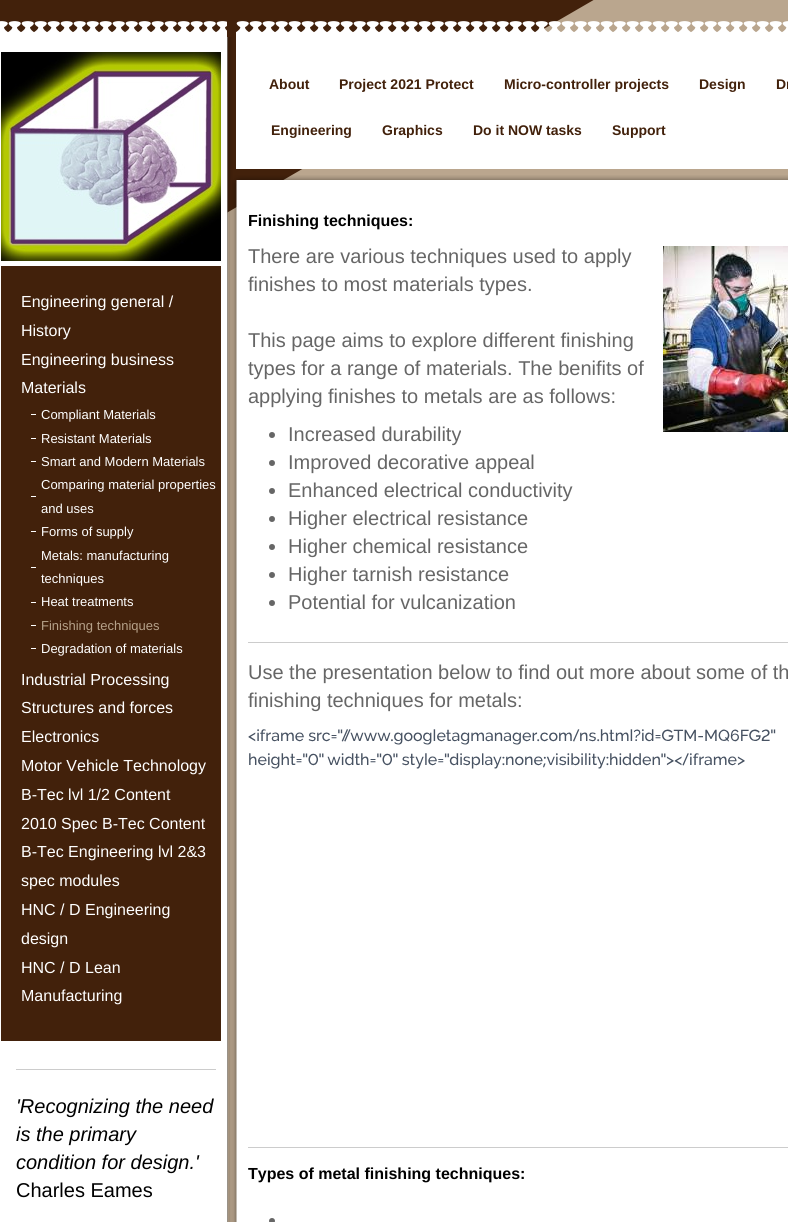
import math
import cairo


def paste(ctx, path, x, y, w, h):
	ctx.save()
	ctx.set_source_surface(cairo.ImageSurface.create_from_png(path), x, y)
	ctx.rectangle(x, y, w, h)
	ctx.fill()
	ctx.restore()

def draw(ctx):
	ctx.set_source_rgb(0.729, 0.651, 0.557)
	ctx.paint()
	paste(ctx, 'media/1.png', 0, 0, 594, 213)
	paste(ctx, 'media/2.png', 0, 21, 227, 16)
	paste(ctx, 'media/3.png', 0, 37, 233, 1185)
	paste(ctx, 'media/4.png', 1, 52, 220, 209)
	ctx.set_source_rgb(0.259, 0.129, 0.043)
	ctx.rectangle(1, 266, 220, 775)
	ctx.fill()
	ctx.select_font_face('Liberation Sans')
	ctx.set_font_size(16)
	ctx.set_source_rgb(1, 1, 1)
	for x, y, s in [
		(21, 307, 'Engineering general /'),
		(21, 336, 'History'),
		(21, 365, 'Engineering business'),
		(21, 393, 'Materials'),
	]:
		ctx.move_to(x, y)
		ctx.show_text(s)
	ctx.rectangle(31, 414, 5, 1)
	ctx.fill()
	ctx.set_font_size(13)
	ctx.move_to(41, 419)
	ctx.show_text('Compliant Materials')
	ctx.rectangle(31, 438, 5, 1)
	ctx.fill()
	ctx.move_to(41, 443)
	ctx.show_text('Resistant Materials')
	ctx.rectangle(31, 461, 5, 1)
	ctx.fill()
	ctx.move_to(41, 466)
	ctx.show_text('Smart and Modern Materials')
	ctx.rectangle(31, 496, 5, 1)
	ctx.fill()
	ctx.move_to(41, 489)
	ctx.show_text('Comparing material properties')
	ctx.move_to(41, 513)
	ctx.show_text('and uses')
	ctx.rectangle(31, 531, 5, 1)
	ctx.fill()
	ctx.move_to(41, 536)
	ctx.show_text('Forms of supply')
	ctx.rectangle(31, 567, 5, 1)
	ctx.fill()
	ctx.move_to(41, 560)
	ctx.show_text('Metals: manufacturing')
	ctx.move_to(41, 583)
	ctx.show_text('techniques')
	ctx.rectangle(31, 602, 5, 1)
	ctx.fill()
	ctx.move_to(41, 606)
	ctx.show_text('Heat treatments')
	ctx.rectangle(31, 625, 5, 1)
	ctx.fill()
	ctx.set_source_rgb(0.71, 0.631, 0.537)
	ctx.move_to(41, 630)
	ctx.show_text('Finishing techniques')
	ctx.set_source_rgb(1, 1, 1)
	ctx.rectangle(31, 648, 5, 1)
	ctx.fill()
	ctx.move_to(41, 653)
	ctx.show_text('Degradation of materials')
	ctx.set_font_size(16)
	for x, y, s in [
		(21, 685, 'Industrial Processing'),
		(21, 713, 'Structures and forces'),
		(21, 742, 'Electronics'),
		(21, 771, 'Motor Vehicle Technology'),
		(21, 800, 'B-Tec lvl 1/2 Content'),
		(21, 829, '2010 Spec B-Tec Content'),
		(21, 857, 'B-Tec Engineering lvl 2&3'),
		(21, 886, 'spec modules'),
		(21, 915, 'HNC / D Engineering'),
		(21, 944, 'design'),
		(21, 973, 'HNC / D Lean'),
		(21, 1001, 'Manufacturing'),
	]:
		ctx.move_to(x, y)
		ctx.show_text(s)
	ctx.set_source_rgb(0.8, 0.8, 0.8)
	ctx.rectangle(16, 1069, 200, 1)
	ctx.fill()
	ctx.select_font_face('Liberation Sans', cairo.FONT_SLANT_ITALIC)
	ctx.set_font_size(20)
	ctx.set_source_rgb(0, 0, 0)
	for x, y, s in [
		(16, 1113, '\'Recognizing the need'),
		(16, 1141, 'is the primary'),
		(16, 1169, 'condition for design.\''),
	]:
		ctx.move_to(x, y)
		ctx.show_text(s)
	ctx.select_font_face('Liberation Sans')
	ctx.move_to(16, 1197)
	ctx.show_text('Charles Eames')
	paste(ctx, 'media/5.png', 236, 21, 552, 16)
	ctx.set_source_rgb(1, 1, 1)
	ctx.rectangle(236, 37, 552, 132)
	ctx.fill()
	ctx.select_font_face('Liberation Sans', cairo.FONT_SLANT_NORMAL, cairo.FONT_WEIGHT_BOLD)
	ctx.set_font_size(14)
	ctx.set_source_rgb(0.259, 0.129, 0.043)
	for x, y, s in [
		(269, 89, 'About'),
		(339, 89, 'Project 2021 Protect'),
		(504, 89, 'Micro-controller projects'),
		(699, 89, 'Design'),
		(776, 89, 'Dr'),
		(271, 135, 'Engineering'),
		(382, 135, 'Graphics'),
		(473, 135, 'Do it NOW tasks'),
		(612, 135, 'Support'),
	]:
		ctx.move_to(x, y)
		ctx.show_text(s)
	paste(ctx, 'media/6.png', 232, 175, 556, 15)
	paste(ctx, 'media/7.png', 231, 190, 557, 1032)
	ctx.set_font_size(16)
	ctx.set_source_rgb(0, 0, 0)
	ctx.move_to(248, 226)
	ctx.show_text('Finishing techniques:')
	ctx.select_font_face('Liberation Sans')
	ctx.set_font_size(20)
	ctx.set_source_rgb(0.4, 0.4, 0.4)
	for x, y, s in [
		(248, 263, 'There are various techniques used to apply'),
		(248, 291, 'finishes to most materials types.'),
		(248, 347, 'This page aims to explore different finishing'),
		(248, 375, 'types for a range of materials. The benifits of'),
		(248, 403, 'applying finishes to metals are as follows:'),
	]:
		ctx.move_to(x, y)
		ctx.show_text(s)
	ctx.new_path()
	ctx.arc(272, 435, 3, 0, 2 * math.pi)
	ctx.fill()
	ctx.move_to(288, 441)
	ctx.show_text('Increased durability')
	ctx.new_path()
	ctx.arc(272, 463, 3, 0, 2 * math.pi)
	ctx.fill()
	ctx.move_to(288, 469)
	ctx.show_text('Improved decorative appeal')
	ctx.new_path()
	ctx.arc(272, 491, 3, 0, 2 * math.pi)
	ctx.fill()
	ctx.move_to(288, 497)
	ctx.show_text('Enhanced electrical conductivity')
	ctx.new_path()
	ctx.arc(272, 519, 3, 0, 2 * math.pi)
	ctx.fill()
	ctx.move_to(288, 525)
	ctx.show_text('Higher electrical resistance')
	ctx.new_path()
	ctx.arc(272, 547, 3, 0, 2 * math.pi)
	ctx.fill()
	ctx.move_to(288, 553)
	ctx.show_text('Higher chemical resistance')
	ctx.new_path()
	ctx.arc(272, 575, 3, 0, 2 * math.pi)
	ctx.fill()
	ctx.move_to(288, 581)
	ctx.show_text('Higher tarnish resistance')
	ctx.new_path()
	ctx.arc(272, 603, 3, 0, 2 * math.pi)
	ctx.fill()
	ctx.move_to(288, 609)
	ctx.show_text('Potential for vulcanization')
	paste(ctx, 'media/8.png', 663, 246, 125, 186)
	ctx.set_source_rgb(0.8, 0.8, 0.8)
	ctx.rectangle(248, 642, 540, 1)
	ctx.fill()
	ctx.set_source_rgb(0.4, 0.4, 0.4)
	ctx.move_to(248, 679)
	ctx.show_text('Use the presentation below to find out more about some of th')
	ctx.move_to(248, 707)
	ctx.show_text('finishing techniques for metals:')
	paste(ctx, 'media/9.png', 248, 729, 528, 40)
	ctx.set_source_rgb(0.8, 0.8, 0.8)
	ctx.rectangle(248, 1147, 540, 1)
	ctx.fill()
	ctx.select_font_face('Liberation Sans', cairo.FONT_SLANT_NORMAL, cairo.FONT_WEIGHT_BOLD)
	ctx.set_font_size(16)
	ctx.set_source_rgb(0, 0, 0)
	ctx.move_to(248, 1179)
	ctx.show_text('Types of metal finishing techniques:')
	ctx.set_source_rgb(0.4, 0.4, 0.4)
	ctx.new_path()
	ctx.arc(272, 1221, 3, 0, 2 * math.pi)
	ctx.fill()


surface = cairo.ImageSurface(cairo.FORMAT_RGB24, 788, 1222)
ctx = cairo.Context(surface)
options = cairo.FontOptions()
options.set_hint_metrics(cairo.HINT_METRICS_OFF)
options.set_hint_style(cairo.HINT_STYLE_NONE)
ctx.set_font_options(options)
ctx.set_miter_limit(4)
draw(ctx)
surface.write_to_png('image.png')
